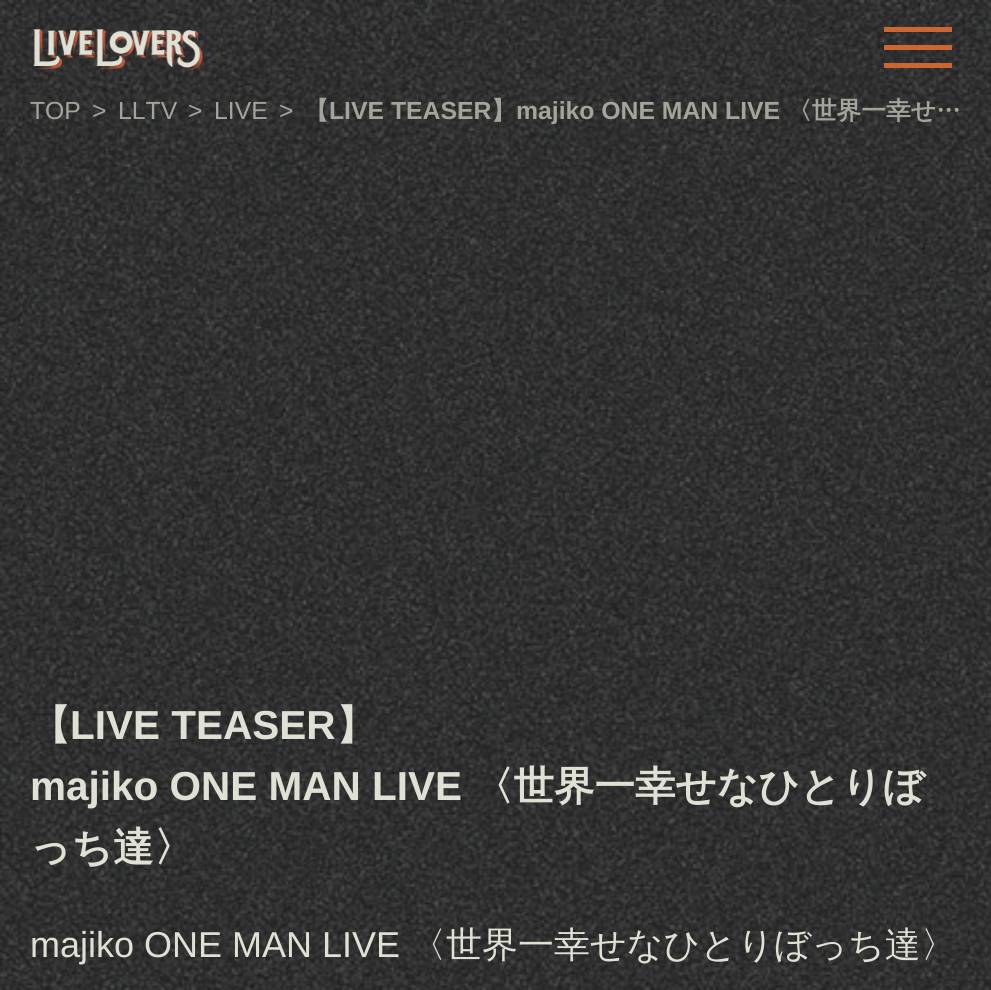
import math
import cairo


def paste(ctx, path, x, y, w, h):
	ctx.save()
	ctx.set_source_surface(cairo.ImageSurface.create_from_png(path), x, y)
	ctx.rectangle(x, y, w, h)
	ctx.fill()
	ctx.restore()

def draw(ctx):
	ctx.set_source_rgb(1, 1, 1)
	ctx.paint()
	paste(ctx, 'media/1.png', 0, 0, 991, 990)
	paste(ctx, 'media/2.png', 33, 29, 170, 41)
	ctx.set_source_rgb(0.8, 0.4, 0.2)
	ctx.rectangle(884, 45, 68, 5)
	ctx.rectangle(884, 27, 68, 5)
	ctx.rectangle(884, 63, 68, 5)
	ctx.fill()
	ctx.select_font_face('Liberation Sans')
	ctx.set_font_size(24.75)
	ctx.set_source_rgb(0.639, 0.643, 0.604)
	for x, y, s in [
		(30, 119, 'TOP'),
		(92, 119, '>'),
		(118, 119, 'LLTV'),
		(188, 119, '>'),
		(214, 119, 'LIVE'),
		(279, 119, '>'),
	]:
		ctx.move_to(x, y)
		ctx.show_text(s)
	ctx.select_font_face('WenQuanYi Zen Hei', cairo.FONT_SLANT_NORMAL, cairo.FONT_WEIGHT_BOLD)
	ctx.move_to(304, 119)
	ctx.show_text('【')
	ctx.select_font_face('Liberation Sans', cairo.FONT_SLANT_NORMAL, cairo.FONT_WEIGHT_BOLD)
	ctx.move_to(329, 119)
	ctx.show_text('LIVE TEASER')
	ctx.select_font_face('WenQuanYi Zen Hei', cairo.FONT_SLANT_NORMAL, cairo.FONT_WEIGHT_BOLD)
	ctx.move_to(491, 119)
	ctx.show_text('】')
	ctx.select_font_face('Liberation Sans', cairo.FONT_SLANT_NORMAL, cairo.FONT_WEIGHT_BOLD)
	ctx.move_to(516, 119)
	ctx.show_text('majiko ONE MAN LIVE')
	ctx.select_font_face('WenQuanYi Zen Hei', cairo.FONT_SLANT_NORMAL, cairo.FONT_WEIGHT_BOLD)
	ctx.move_to(787, 119)
	ctx.show_text('〈世界一幸せ…')
	ctx.set_font_size(40.5)
	ctx.set_source_rgb(0.878, 0.882, 0.831)
	ctx.move_to(30, 739)
	ctx.show_text('【')
	ctx.select_font_face('Liberation Sans', cairo.FONT_SLANT_NORMAL, cairo.FONT_WEIGHT_BOLD)
	ctx.move_to(70, 739)
	ctx.show_text('LIVE TEASER')
	ctx.select_font_face('WenQuanYi Zen Hei', cairo.FONT_SLANT_NORMAL, cairo.FONT_WEIGHT_BOLD)
	ctx.move_to(336, 739)
	ctx.show_text('】')
	ctx.select_font_face('Liberation Sans', cairo.FONT_SLANT_NORMAL, cairo.FONT_WEIGHT_BOLD)
	ctx.move_to(30, 800)
	ctx.show_text('majiko ONE MAN LIVE')
	ctx.select_font_face('WenQuanYi Zen Hei', cairo.FONT_SLANT_NORMAL, cairo.FONT_WEIGHT_BOLD)
	ctx.move_to(473, 800)
	ctx.show_text('〈世界一幸せなひとりぼ')
	ctx.move_to(30, 861)
	ctx.show_text('っち達〉')
	ctx.select_font_face('Liberation Sans')
	ctx.set_font_size(36)
	ctx.move_to(30, 957)
	ctx.show_text('majiko ONE MAN LIVE')
	ctx.select_font_face('WenQuanYi Zen Hei Medium')
	ctx.move_to(410, 957)
	ctx.show_text('〈世界一幸せなひとりぼっち達〉')


surface = cairo.ImageSurface(cairo.FORMAT_RGB24, 991, 990)
ctx = cairo.Context(surface)
options = cairo.FontOptions()
options.set_hint_metrics(cairo.HINT_METRICS_OFF)
options.set_hint_style(cairo.HINT_STYLE_NONE)
ctx.set_font_options(options)
ctx.set_miter_limit(4)
draw(ctx)
surface.write_to_png('image.png')
